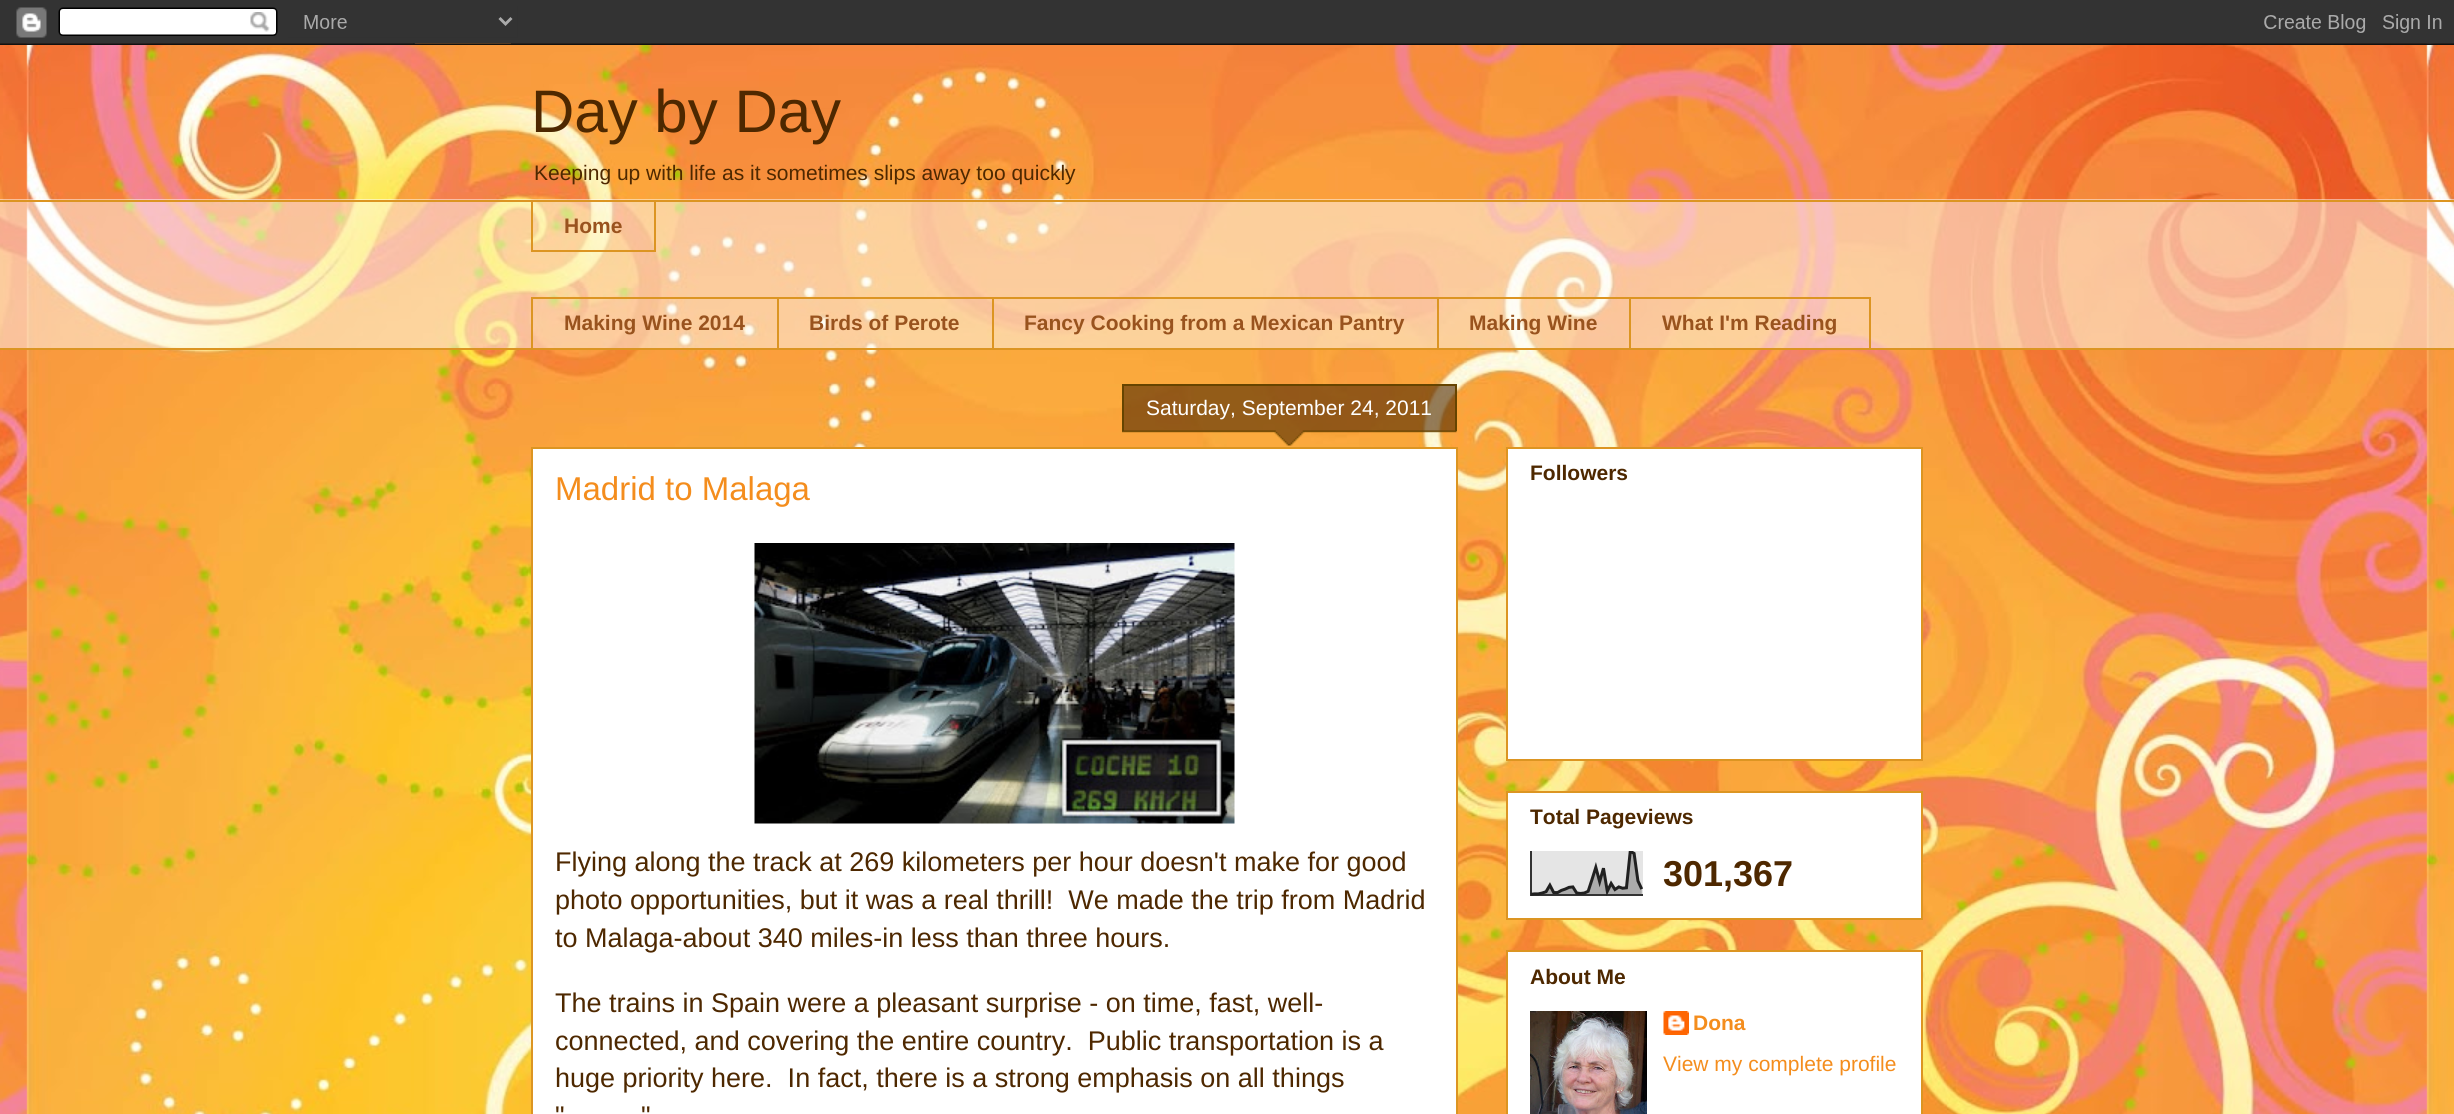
import math
import cairo


def paste(ctx, path, x, y, w, h):
	ctx.save()
	ctx.set_source_surface(cairo.ImageSurface.create_from_png(path), x, y)
	ctx.rectangle(x, y, w, h)
	ctx.fill()
	ctx.restore()

def draw(ctx):
	ctx.set_source_rgb(1, 1, 1)
	ctx.paint()
	paste(ctx, 'media/1.png', 0, 43, 2454, 1071)
	paste(ctx, 'media/2.png', 0, 0, 2454, 45)
	ctx.select_font_face('Liberation Sans')
	ctx.set_font_size(60)
	ctx.set_source_rgb(0.306, 0.157, 0)
	ctx.move_to(531, 132)
	ctx.show_text('Day by Day')
	ctx.set_font_size(21)
	ctx.move_to(534, 180)
	ctx.show_text('Keeping up with life as it sometimes slips away too quickly')
	ctx.set_source_rgba(1, 1, 1, 0.49)
	ctx.rectangle(0, 199, 2454, 149)
	ctx.fill()
	ctx.set_source_rgb(0.863, 0.584, 0.133)
	ctx.rectangle(0, 200, 2454, 2)
	ctx.fill()
	ctx.rectangle(532, 201, 123, 50)
	ctx.stroke()
	ctx.select_font_face('Liberation Sans', cairo.FONT_SLANT_NORMAL, cairo.FONT_WEIGHT_BOLD)
	ctx.set_source_rgb(0.6, 0.325, 0.118)
	ctx.move_to(564, 233)
	ctx.show_text('Home')
	ctx.set_source_rgb(0.863, 0.584, 0.133)
	ctx.rectangle(531, 297, 1098, 2)
	ctx.fill()
	ctx.rectangle(531, 297, 2, 53)
	ctx.fill()
	ctx.set_source_rgb(0.6, 0.325, 0.118)
	ctx.move_to(564, 330)
	ctx.show_text('Making Wine 2014')
	ctx.set_source_rgb(0.863, 0.584, 0.133)
	ctx.rectangle(777, 297, 2, 53)
	ctx.fill()
	ctx.set_source_rgb(0.6, 0.325, 0.118)
	ctx.move_to(809, 330)
	ctx.show_text('Birds of Perote')
	ctx.set_source_rgb(0.863, 0.584, 0.133)
	ctx.rectangle(992, 297, 2, 53)
	ctx.fill()
	ctx.set_source_rgb(0.6, 0.325, 0.118)
	ctx.move_to(1024, 330)
	ctx.show_text('Fancy Cooking from a Mexican Pantry')
	ctx.set_source_rgb(0.863, 0.584, 0.133)
	ctx.rectangle(1437, 297, 2, 53)
	ctx.fill()
	ctx.set_source_rgb(0.6, 0.325, 0.118)
	ctx.move_to(1469, 330)
	ctx.show_text('Making Wine')
	ctx.rectangle(1630, 298, 240, 51)
	ctx.set_source_rgb(0.863, 0.584, 0.133)
	ctx.stroke()
	ctx.set_source_rgb(0.6, 0.325, 0.118)
	ctx.move_to(1662, 330)
	ctx.show_text('What I\'m Reading')
	ctx.set_source_rgb(0.863, 0.584, 0.133)
	ctx.rectangle(0, 348, 2454, 2)
	ctx.fill()
	ctx.set_source_rgb(1, 1, 1)
	ctx.rectangle(532, 448, 925, 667)
	ctx.fill_preserve()
	ctx.set_source_rgb(0.863, 0.584, 0.133)
	ctx.stroke()
	paste(ctx, 'media/3.png', 1122, 386, 335, 60)
	ctx.set_source_rgb(0.4, 0.267, 0)
	ctx.rectangle(1122, 384, 335, 2)
	ctx.rectangle(1455, 386, 2, 45)
	ctx.rectangle(1122, 386, 2, 45)
	ctx.fill()
	ctx.select_font_face('Liberation Sans')
	ctx.set_source_rgb(1, 1, 1)
	ctx.move_to(1146, 415)
	ctx.show_text('Saturday, September 24, 2011')
	ctx.set_font_size(33)
	ctx.set_source_rgb(0.957, 0.553, 0.114)
	ctx.move_to(555, 500)
	ctx.show_text('Madrid to Malaga')
	paste(ctx, 'media/4.png', 754, 543, 481, 281)
	ctx.set_font_size(27)
	ctx.set_source_rgb(0.306, 0.157, 0)
	for x, y, s in [
		(555, 871, 'Flying along the track at 269 kilometers per hour doesn\'t make for good'),
		(555, 909, 'photo opportunities, but it was a real thrill!  We made the trip from Madrid'),
		(555, 947, 'to Malaga-about 340 miles-in less than three hours.'),
		(555, 1012, 'The trains in Spain were a pleasant surprise - on time, fast, well-'),
		(555, 1050, 'connected, and covering the entire country.  Public transportation is a'),
		(555, 1087, 'huge priority here.  In fact, there is a strong emphasis on all things'),
		(555, 1125, '"'),
		(641, 1125, '"'),
	]:
		ctx.move_to(x, y)
		ctx.show_text(s)
	ctx.set_source_rgb(1, 1, 1)
	ctx.rectangle(1507, 448, 415, 312)
	ctx.fill_preserve()
	ctx.set_source_rgb(0.863, 0.584, 0.133)
	ctx.stroke()
	ctx.select_font_face('Liberation Sans', cairo.FONT_SLANT_NORMAL, cairo.FONT_WEIGHT_BOLD)
	ctx.set_font_size(21)
	ctx.set_source_rgb(0.306, 0.157, 0)
	ctx.move_to(1530, 480)
	ctx.show_text('Followers')
	ctx.set_source_rgb(1, 1, 1)
	ctx.rectangle(1507, 792, 415, 127)
	ctx.fill_preserve()
	ctx.set_source_rgb(0.863, 0.584, 0.133)
	ctx.stroke()
	ctx.set_source_rgb(0.306, 0.157, 0)
	ctx.move_to(1530, 824)
	ctx.show_text('Total Pageviews')
	paste(ctx, 'media/5.png', 1530, 851, 113, 45)
	ctx.set_font_size(36)
	ctx.move_to(1663, 886)
	ctx.show_text('301,367')
	ctx.set_source_rgb(1, 1, 1)
	ctx.rectangle(1507, 951, 415, 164)
	ctx.fill_preserve()
	ctx.set_source_rgb(0.863, 0.584, 0.133)
	ctx.stroke()
	ctx.set_font_size(21)
	ctx.set_source_rgb(0.306, 0.157, 0)
	ctx.move_to(1530, 984)
	ctx.show_text('About Me')
	paste(ctx, 'media/6.png', 1530, 1011, 117, 103)
	paste(ctx, 'media/7.png', 1663, 1011, 26, 24)
	ctx.set_source_rgb(0.957, 0.553, 0.114)
	ctx.move_to(1693, 1030)
	ctx.show_text('Dona')
	ctx.select_font_face('Liberation Sans')
	ctx.move_to(1663, 1071)
	ctx.show_text('View my complete profile')


surface = cairo.ImageSurface(cairo.FORMAT_RGB24, 2454, 1114)
ctx = cairo.Context(surface)
options = cairo.FontOptions()
options.set_hint_metrics(cairo.HINT_METRICS_OFF)
options.set_hint_style(cairo.HINT_STYLE_NONE)
ctx.set_font_options(options)
ctx.set_miter_limit(4)
draw(ctx)
surface.write_to_png('image.png')
